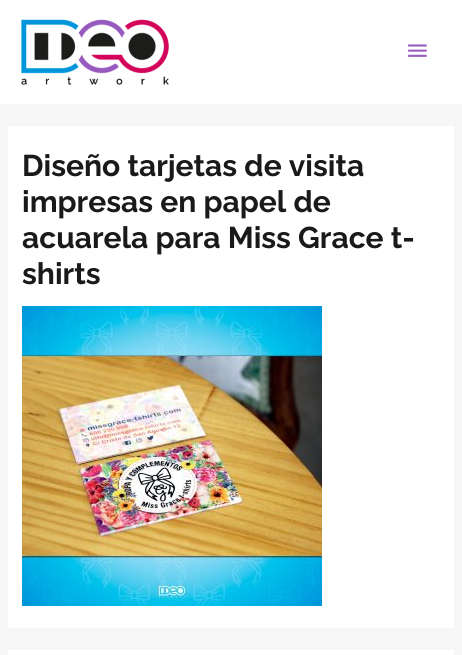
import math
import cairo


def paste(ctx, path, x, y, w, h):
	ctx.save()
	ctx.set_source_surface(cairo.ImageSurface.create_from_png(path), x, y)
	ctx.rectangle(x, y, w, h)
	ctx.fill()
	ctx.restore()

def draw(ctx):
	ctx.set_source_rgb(0.961, 0.961, 0.961)
	ctx.paint()
	ctx.set_source_rgb(1, 1, 1)
	ctx.rectangle(0, 0, 462, 104)
	ctx.fill()
	paste(ctx, 'media/1.png', 21, 19, 148, 66)
	paste(ctx, 'media/2.png', 408, 44, 19, 13)
	ctx.rectangle(8, 126, 446, 502)
	ctx.fill()
	ctx.select_font_face('Raleway Thin')
	ctx.set_font_size(30)
	ctx.set_source_rgb(0.102, 0.102, 0.102)
	for x, y, s in [
		(22, 176, 'Diseño tarjetas de visita'),
		(22, 212, 'impresas en papel de'),
		(22, 248, 'acuarela para Miss Grace t-'),
		(22, 284, 'shirts'),
	]:
		ctx.move_to(x, y)
		ctx.show_text(s)
	paste(ctx, 'media/3.png', 22, 306, 300, 300)
	ctx.set_source_rgb(1, 1, 1)
	ctx.rectangle(8, 650, 446, 5)
	ctx.fill()


surface = cairo.ImageSurface(cairo.FORMAT_RGB24, 462, 655)
ctx = cairo.Context(surface)
options = cairo.FontOptions()
options.set_hint_metrics(cairo.HINT_METRICS_OFF)
options.set_hint_style(cairo.HINT_STYLE_NONE)
ctx.set_font_options(options)
ctx.set_miter_limit(4)
draw(ctx)
surface.write_to_png('image.png')
